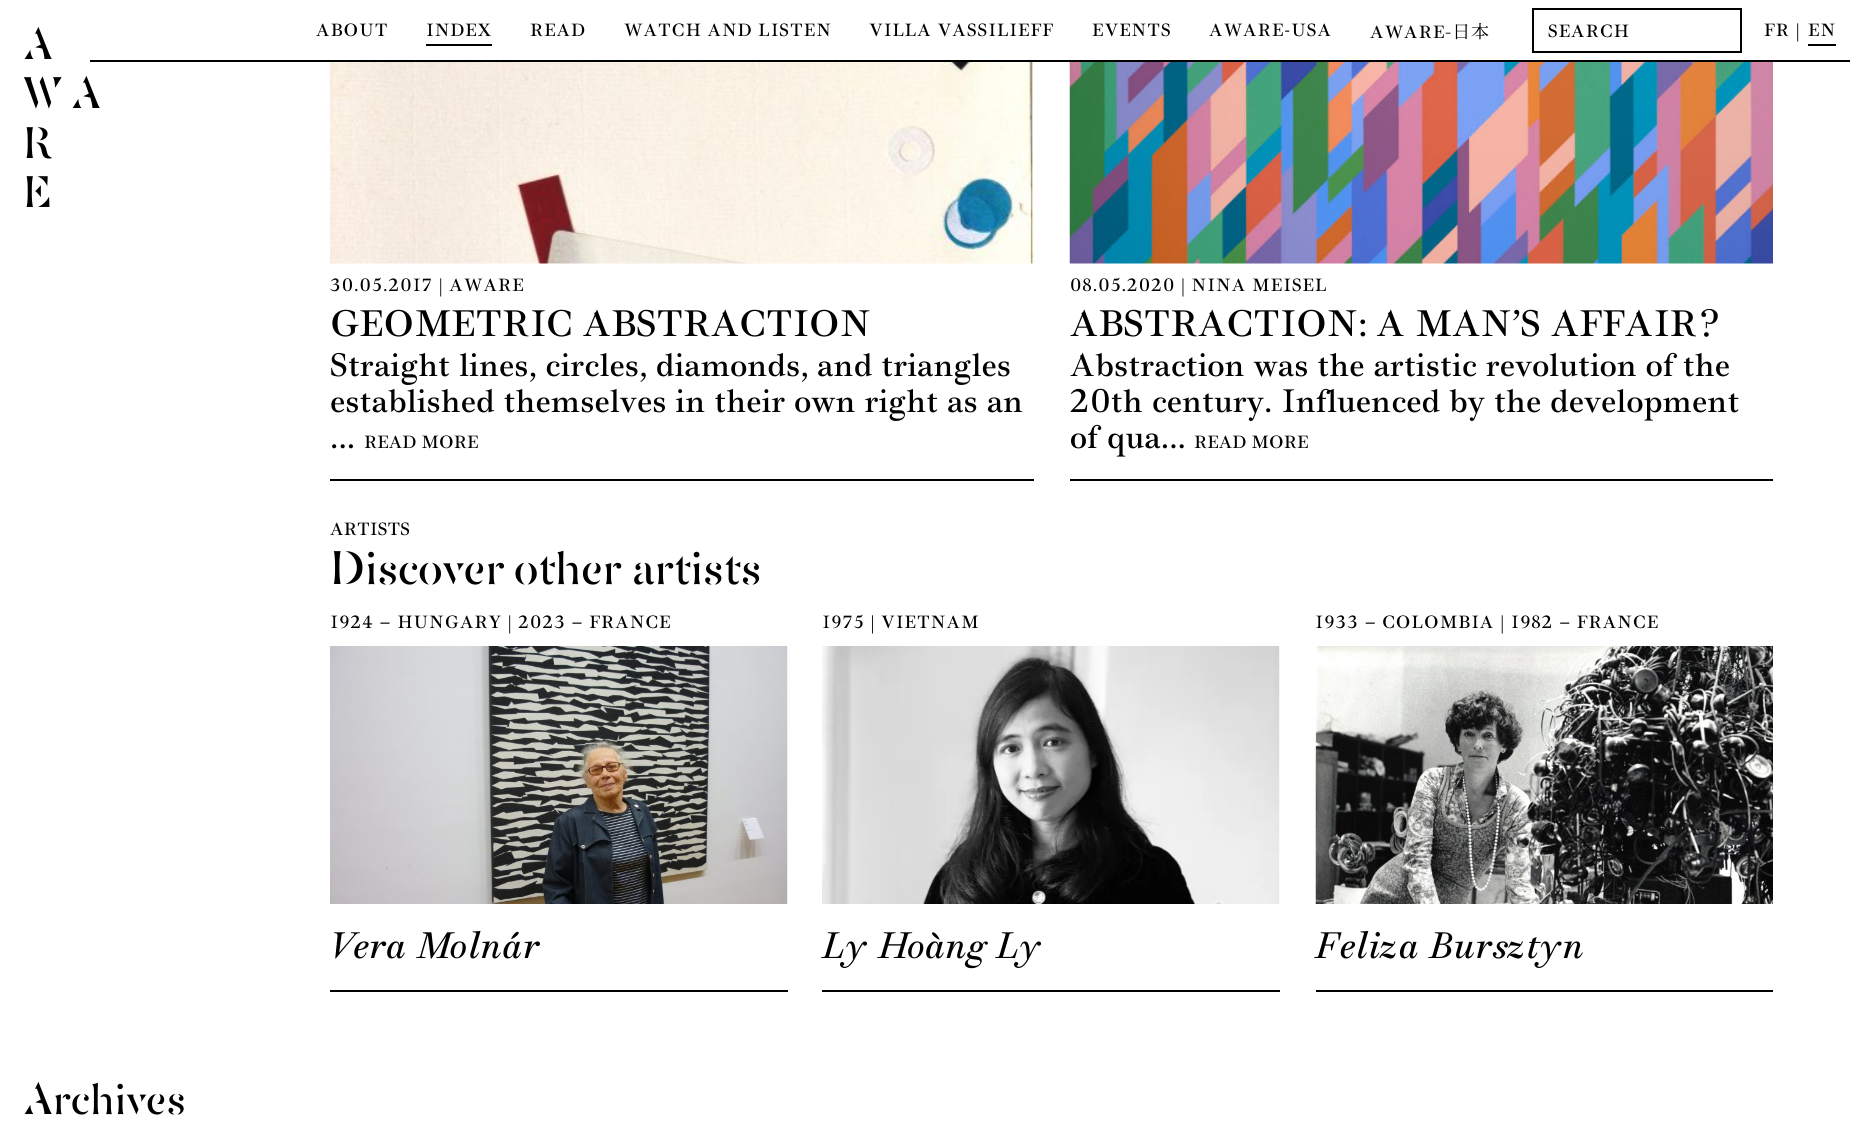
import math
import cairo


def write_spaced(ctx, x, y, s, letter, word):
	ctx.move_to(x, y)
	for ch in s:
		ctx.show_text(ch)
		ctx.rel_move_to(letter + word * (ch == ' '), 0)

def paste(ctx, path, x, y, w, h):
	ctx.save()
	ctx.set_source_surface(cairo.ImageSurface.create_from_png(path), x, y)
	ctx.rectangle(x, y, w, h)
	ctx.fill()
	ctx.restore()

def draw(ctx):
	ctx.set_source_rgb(1, 1, 1)
	ctx.paint()
	ctx.select_font_face('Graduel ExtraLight')
	ctx.set_font_size(45)
	ctx.set_source_rgb(0, 0, 0)
	for x, y, s in [
		(23, 59, 'A'),
		(23, 108, 'W A'),
		(23, 158, 'R'),
		(23, 207, 'E'),
	]:
		ctx.move_to(x, y)
		ctx.show_text(s)
	ctx.rectangle(90, 60, 1760, 2)
	ctx.fill()
	ctx.select_font_face('Graduel')
	ctx.set_font_size(18)
	write_spaced(ctx, 316, 36, 'ABOUT', 0.9, 0)
	write_spaced(ctx, 426, 36, 'INDEX', 0.9, 0)
	ctx.rectangle(426, 44, 66, 2)
	ctx.fill()
	for x, y, s in [
		(530, 36, 'READ'),
		(624, 36, 'WATCH AND LISTEN'),
		(869, 36, 'VILLA VASSILIEFF'),
		(1092, 36, 'EVENTS'),
		(1209, 36, 'AWARE-USA'),
		(1370, 38, 'AWARE'),
	]:
		write_spaced(ctx, x, y, s, 0.9, 0)
	ctx.select_font_face('Noto Serif JP')
	write_spaced(ctx, 1445, 38, '-日本', 0.9, 0)
	ctx.rectangle(1533, 9, 208, 43)
	ctx.stroke()
	ctx.select_font_face('Graduel')
	for x, y, s in [
		(1548, 37, 'SEARCH'),
		(1764, 36, 'FR |'),
		(1808, 36, 'EN'),
	]:
		write_spaced(ctx, x, y, s, 0.9, 0)
	ctx.rectangle(1808, 44, 28, 2)
	ctx.fill()
	ctx.rectangle(330, 479, 704, 2)
	ctx.fill()
	paste(ctx, 'media/1.png', 330, 62, 704, 202)
	write_spaced(ctx, 330, 291, '30.05.2017 | AWARE', 0.9, 0)
	ctx.set_font_size(37.5)
	ctx.move_to(330, 336)
	ctx.show_text('GEOMETRIC ABSTRACTION')
	ctx.set_font_size(33)
	for x, y, s in [
		(330, 376, 'Straight lines, circles, diamonds, and triangles'),
		(330, 412, 'established themselves in their own right as an'),
		(330, 448, '...'),
	]:
		ctx.move_to(x, y)
		ctx.show_text(s)
	ctx.set_font_size(18)
	ctx.move_to(364, 448)
	ctx.show_text('READ MORE')
	ctx.rectangle(1070, 479, 703, 2)
	ctx.fill()
	paste(ctx, 'media/2.png', 1069, 62, 704, 202)
	write_spaced(ctx, 1070, 291, '08.05.2020 | NINA MEISEL', 0.9, 0)
	ctx.set_font_size(37.5)
	ctx.move_to(1070, 336)
	ctx.show_text('ABSTRACTION: A MAN’S AFFAIR?')
	ctx.set_font_size(33)
	for x, y, s in [
		(1070, 376, 'Abstraction was the artistic revolution of the'),
		(1070, 412, '20th century. Influenced by the development'),
		(1070, 448, 'of qua...'),
	]:
		ctx.move_to(x, y)
		ctx.show_text(s)
	ctx.set_font_size(18)
	ctx.move_to(1194, 448)
	ctx.show_text('READ MORE')
	ctx.move_to(330, 535)
	ctx.show_text('ARTISTS')
	ctx.select_font_face('Graduel ExtraLight')
	ctx.set_font_size(48)
	ctx.move_to(330, 584)
	ctx.show_text('Discover other artists')
	ctx.rectangle(330, 990, 458, 2)
	ctx.fill()
	ctx.select_font_face('Graduel')
	ctx.set_font_size(18)
	write_spaced(ctx, 330, 628, '1924 — HUNGARY | 2023 — FRANCE', 0.9, 0)
	paste(ctx, 'media/3.png', 330, 646, 458, 258)
	ctx.select_font_face('Graduel', cairo.FONT_SLANT_ITALIC)
	ctx.set_font_size(37.5)
	write_spaced(ctx, 330, 958, 'Vera Molnár', 1.5, 0)
	ctx.rectangle(822, 990, 458, 2)
	ctx.fill()
	ctx.select_font_face('Graduel')
	ctx.set_font_size(18)
	write_spaced(ctx, 822, 628, '1975 | VIETNAM', 0.9, 0)
	paste(ctx, 'media/4.png', 822, 646, 458, 258)
	ctx.select_font_face('Graduel', cairo.FONT_SLANT_ITALIC)
	ctx.set_font_size(37.5)
	write_spaced(ctx, 822, 958, 'Ly Hoàng Ly', 1.5, 0)
	ctx.rectangle(1316, 990, 457, 2)
	ctx.fill()
	ctx.select_font_face('Graduel')
	ctx.set_font_size(18)
	write_spaced(ctx, 1315, 628, '1933 — COLOMBIA | 1982 — FRANCE', 0.9, 0)
	paste(ctx, 'media/5.png', 1315, 646, 458, 258)
	ctx.select_font_face('Graduel', cairo.FONT_SLANT_ITALIC)
	ctx.set_font_size(37.5)
	write_spaced(ctx, 1315, 958, 'Feliza Bursztyn', 1.5, 0)
	ctx.select_font_face('Graduel ExtraLight')
	ctx.set_font_size(45)
	ctx.move_to(23, 1114)
	ctx.show_text('Archives')


surface = cairo.ImageSurface(cairo.FORMAT_RGB24, 1850, 1143)
ctx = cairo.Context(surface)
options = cairo.FontOptions()
options.set_hint_metrics(cairo.HINT_METRICS_OFF)
options.set_hint_style(cairo.HINT_STYLE_NONE)
ctx.set_font_options(options)
ctx.set_miter_limit(4)
draw(ctx)
surface.write_to_png('image.png')
